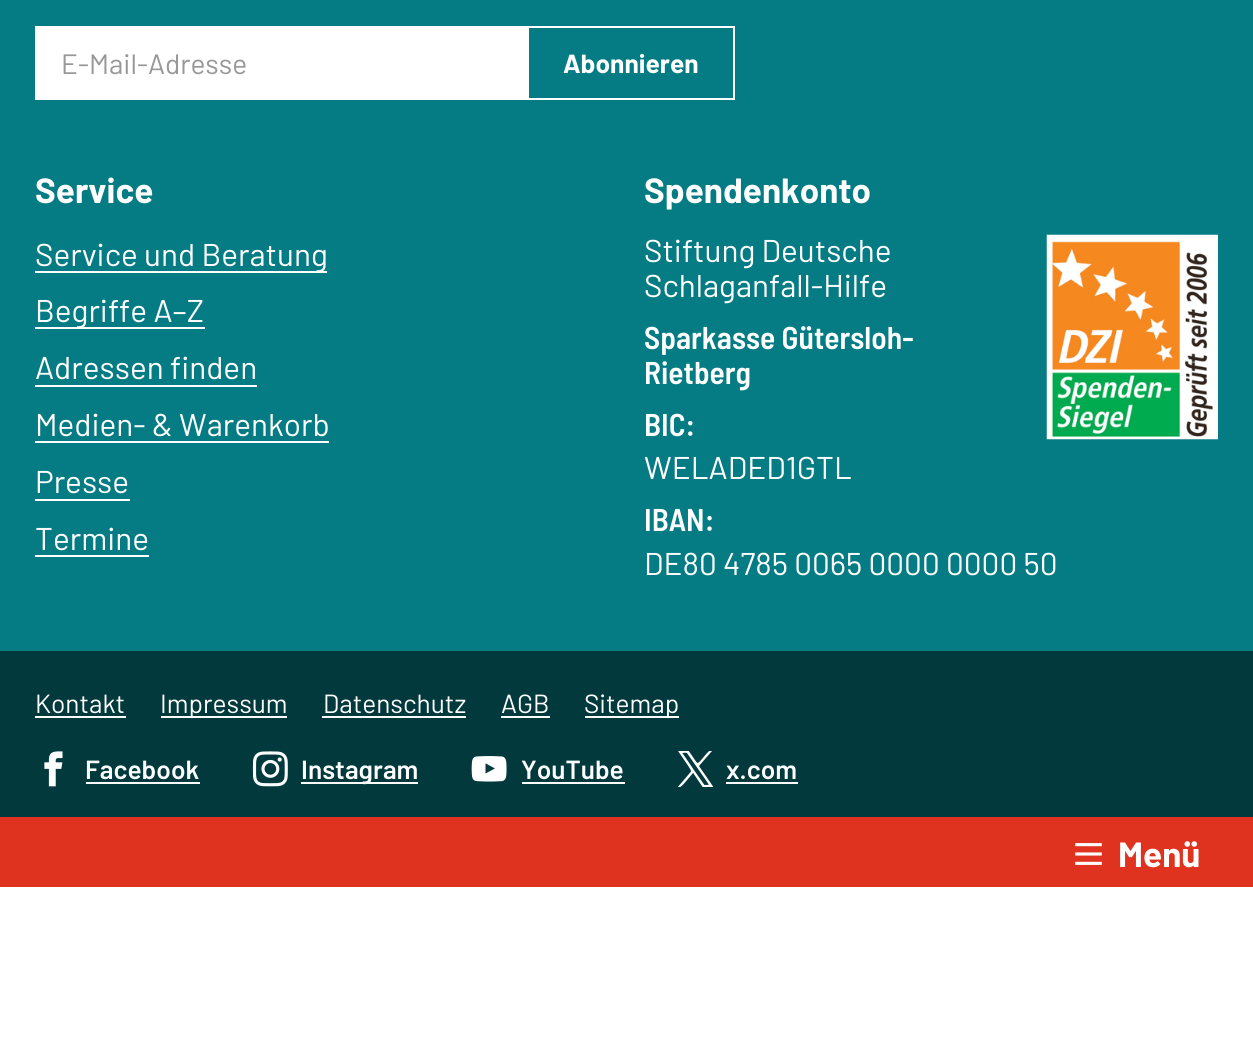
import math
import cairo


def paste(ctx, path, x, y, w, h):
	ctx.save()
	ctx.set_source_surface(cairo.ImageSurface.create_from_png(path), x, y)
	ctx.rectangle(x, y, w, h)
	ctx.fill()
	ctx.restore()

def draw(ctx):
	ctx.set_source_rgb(1, 1, 1)
	ctx.paint()
	ctx.set_source_rgb(0.02, 0.486, 0.518)
	ctx.rectangle(0, 0, 1253, 651)
	ctx.fill()
	ctx.set_source_rgb(1, 1, 1)
	ctx.rectangle(35, 26, 700, 74)
	ctx.fill()
	ctx.select_font_face('Barlow')
	ctx.set_font_size(28)
	ctx.set_source_rgb(0.592, 0.592, 0.592)
	ctx.move_to(61, 74)
	ctx.show_text('E-Mail-Adresse')
	ctx.set_source_rgb(0.02, 0.486, 0.518)
	ctx.rectangle(529, 28, 204, 70)
	ctx.fill()
	ctx.select_font_face('Barlow', cairo.FONT_SLANT_NORMAL, cairo.FONT_WEIGHT_BOLD)
	ctx.set_font_size(26.25)
	ctx.set_source_rgb(1, 1, 1)
	ctx.move_to(563, 73)
	ctx.show_text('Abonnieren')
	ctx.set_font_size(35)
	ctx.move_to(35, 203)
	ctx.show_text('Service')
	ctx.rectangle(35, 271, 292, 2)
	ctx.fill()
	ctx.select_font_face('Barlow')
	ctx.set_font_size(31.5)
	ctx.move_to(35, 266)
	ctx.show_text('Service und Beratung')
	ctx.rectangle(35, 327, 170, 2)
	ctx.fill()
	ctx.move_to(35, 322)
	ctx.show_text('Begriffe A–Z')
	ctx.move_to(35, 379)
	ctx.show_text('Adressen finden')
	ctx.rectangle(35, 385, 222, 2)
	ctx.fill()
	ctx.move_to(35, 436)
	ctx.show_text('Medien- & Warenkorb')
	ctx.rectangle(35, 441, 294, 2)
	ctx.fill()
	ctx.move_to(35, 493)
	ctx.show_text('Presse')
	ctx.rectangle(35, 499, 95, 2)
	ctx.fill()
	ctx.move_to(35, 550)
	ctx.show_text('Termine')
	ctx.rectangle(35, 555, 114, 2)
	ctx.fill()
	ctx.select_font_face('Barlow', cairo.FONT_SLANT_NORMAL, cairo.FONT_WEIGHT_BOLD)
	ctx.set_font_size(35)
	ctx.move_to(644, 203)
	ctx.show_text('Spendenkonto')
	ctx.select_font_face('Barlow')
	ctx.set_font_size(31.5)
	ctx.move_to(644, 262)
	ctx.show_text('Stiftung Deutsche')
	ctx.move_to(644, 297)
	ctx.show_text('Schlaganfall-Hilfe')
	ctx.select_font_face('Barlow Semi Condensed SemiBold')
	for x, y, s in [
		(644, 349, 'Sparkasse Gütersloh-'),
		(644, 384, 'Rietberg'),
		(644, 436, 'BIC:'),
	]:
		ctx.move_to(x, y)
		ctx.show_text(s)
	ctx.select_font_face('Barlow')
	ctx.move_to(644, 479)
	ctx.show_text('WELADED1GTL')
	ctx.select_font_face('Barlow Semi Condensed SemiBold')
	ctx.move_to(644, 531)
	ctx.show_text('IBAN:')
	ctx.select_font_face('Barlow')
	ctx.move_to(644, 575)
	ctx.show_text('DE80 4785 0065 0000 0000 50')
	paste(ctx, 'media/1.png', 1046, 234, 172, 206)
	ctx.set_source_rgb(0.008, 0.224, 0.239)
	ctx.rectangle(0, 651, 1253, 166)
	ctx.fill()
	ctx.set_font_size(26.25)
	ctx.set_source_rgb(1, 1, 1)
	ctx.move_to(35, 713)
	ctx.show_text('Kontakt')
	ctx.rectangle(35, 716, 91, 2)
	ctx.fill()
	ctx.rectangle(161, 716, 126, 2)
	ctx.fill()
	ctx.move_to(160, 713)
	ctx.show_text('Impressum')
	ctx.move_to(323, 713)
	ctx.show_text('Datenschutz')
	ctx.rectangle(322, 716, 144, 2)
	ctx.fill()
	ctx.move_to(501, 713)
	ctx.show_text('AGB')
	ctx.rectangle(501, 716, 49, 2)
	ctx.fill()
	ctx.rectangle(585, 716, 94, 2)
	ctx.fill()
	ctx.move_to(584, 713)
	ctx.show_text('Sitemap')
	paste(ctx, 'media/2.png', 44, 751, 19, 36)
	ctx.select_font_face('Barlow SemiBold')
	ctx.move_to(85, 779)
	ctx.show_text('Facebook')
	ctx.rectangle(86, 782, 114, 2)
	ctx.fill()
	paste(ctx, 'media/3.png', 252, 751, 36, 36)
	ctx.rectangle(301, 782, 117, 2)
	ctx.fill()
	ctx.move_to(301, 779)
	ctx.show_text('Instagram')
	paste(ctx, 'media/4.png', 471, 756, 36, 26)
	ctx.move_to(521, 779)
	ctx.show_text('YouTube')
	ctx.rectangle(522, 782, 103, 2)
	ctx.fill()
	paste(ctx, 'media/5.png', 678, 751, 36, 36)
	ctx.move_to(726, 779)
	ctx.show_text('x.com')
	ctx.rectangle(726, 782, 72, 2)
	ctx.fill()
	ctx.set_source_rgb(0.875, 0.2, 0.125)
	ctx.rectangle(0, 817, 1253, 70)
	ctx.fill()
	paste(ctx, 'media/6.png', 1075, 843, 27, 22)
	ctx.select_font_face('Barlow', cairo.FONT_SLANT_NORMAL, cairo.FONT_WEIGHT_BOLD)
	ctx.set_font_size(35)
	ctx.set_source_rgb(1, 1, 1)
	ctx.move_to(1118, 867)
	ctx.show_text('Menü')


surface = cairo.ImageSurface(cairo.FORMAT_RGB24, 1253, 1050)
ctx = cairo.Context(surface)
options = cairo.FontOptions()
options.set_hint_metrics(cairo.HINT_METRICS_OFF)
options.set_hint_style(cairo.HINT_STYLE_NONE)
ctx.set_font_options(options)
ctx.set_miter_limit(4)
draw(ctx)
surface.write_to_png('image.png')
